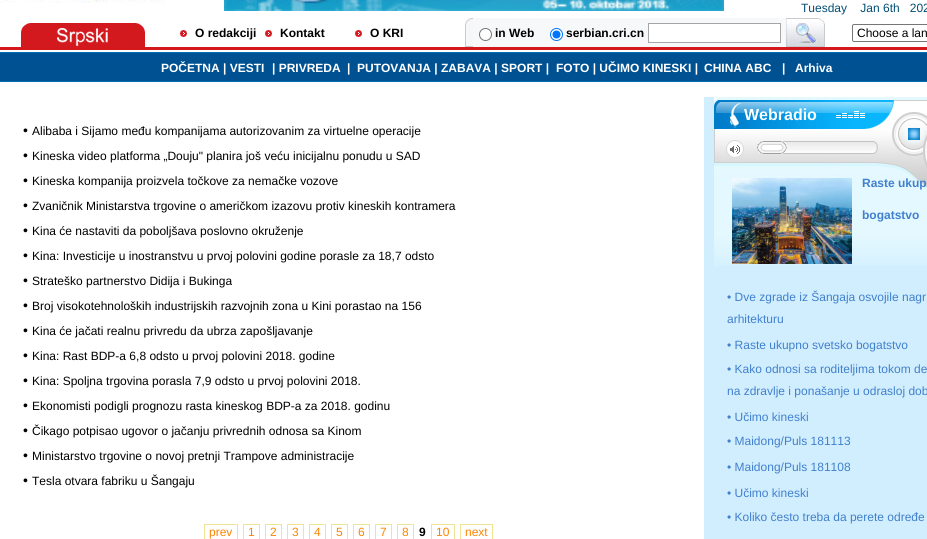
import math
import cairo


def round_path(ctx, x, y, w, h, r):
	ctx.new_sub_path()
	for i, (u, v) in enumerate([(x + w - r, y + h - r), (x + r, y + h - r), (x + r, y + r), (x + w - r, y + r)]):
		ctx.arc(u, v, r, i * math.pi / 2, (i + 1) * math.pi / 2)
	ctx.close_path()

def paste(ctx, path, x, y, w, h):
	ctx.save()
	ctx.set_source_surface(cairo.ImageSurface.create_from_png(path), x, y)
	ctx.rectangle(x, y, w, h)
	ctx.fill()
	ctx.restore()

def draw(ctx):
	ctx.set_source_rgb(1, 1, 1)
	ctx.paint()
	paste(ctx, 'media/1.png', 1, 0, 163, 3)
	paste(ctx, 'media/2.png', 224, 0, 500, 11)
	ctx.select_font_face('Liberation Sans')
	ctx.set_font_size(12)
	ctx.set_source_rgb(0.012, 0.31, 0.455)
	ctx.move_to(801, 12)
	ctx.show_text('Tuesday    Jan 6th   202')
	paste(ctx, 'media/3.png', 17, 22, 132, 25)
	paste(ctx, 'media/4.png', 180, 30, 7, 7)
	ctx.select_font_face('Liberation Sans', cairo.FONT_SLANT_NORMAL, cairo.FONT_WEIGHT_BOLD)
	ctx.set_source_rgb(0, 0, 0)
	ctx.move_to(195, 37)
	ctx.show_text('O redakciji')
	paste(ctx, 'media/4.png', 265, 30, 7, 7)
	ctx.move_to(280, 37)
	ctx.show_text('Kontakt')
	paste(ctx, 'media/4.png', 355, 30, 7, 7)
	ctx.move_to(370, 37)
	ctx.show_text('O KRI')
	ctx.set_source_rgb(0.965, 0.969, 0.976)
	ctx.rectangle(473, 18, 313, 29)
	ctx.fill()
	paste(ctx, 'media/5.png', 465, 18, 8, 29)
	ctx.set_source_rgb(1, 1, 1)
	ctx.arc(485.5, 34.5, 6, 0, 2 * math.pi)
	ctx.fill_preserve()
	ctx.set_source_rgb(0.463, 0.463, 0.463)
	ctx.set_line_width(1)
	ctx.stroke()
	ctx.set_source_rgb(0, 0, 0)
	ctx.move_to(495, 37)
	ctx.show_text('in Web')
	ctx.set_source_rgb(1, 1, 1)
	ctx.new_path()
	ctx.arc(556.5, 34.5, 6, 0, 2 * math.pi)
	ctx.fill_preserve()
	ctx.set_source_rgb(0, 0.459, 1)
	ctx.stroke()
	ctx.arc(556.5, 34.5, 4, 0, 2 * math.pi)
	ctx.fill()
	ctx.set_source_rgb(0, 0, 0)
	ctx.move_to(566, 37)
	ctx.show_text('serbian.cri.cn')
	ctx.set_source_rgb(1, 1, 1)
	ctx.rectangle(648.5, 23.5, 132, 19)
	ctx.fill_preserve()
	ctx.set_source_rgb(0.651, 0.651, 0.651)
	ctx.stroke()
	paste(ctx, 'media/6.png', 786, 18, 39, 29)
	round_path(ctx, 852.5, 24.5, 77, 17, 1.5)
	ctx.set_source_rgb(0.463, 0.463, 0.463)
	ctx.stroke()
	ctx.select_font_face('Liberation Sans')
	ctx.set_source_rgb(0, 0, 0)
	ctx.move_to(857, 37)
	ctx.show_text('Choose a lan')
	ctx.set_source_rgb(0.827, 0.098, 0.118)
	ctx.rectangle(0, 47, 927, 3)
	ctx.fill()
	paste(ctx, 'media/7.png', 0, 52, 927, 30)
	ctx.select_font_face('Liberation Sans', cairo.FONT_SLANT_NORMAL, cairo.FONT_WEIGHT_BOLD)
	ctx.set_source_rgb(1, 1, 1)
	for x, y, s in [
		(161, 72, 'POČETNA | VESTI'),
		(272, 72, '| PRIVREDA'),
		(347, 72, '|'),
		(357, 72, 'PUTOVANJA | ZABAVA | SPORT |'),
		(556, 72, 'FOTO | UČIMO KINESKI |'),
		(704, 72, 'CHINA ABC'),
		(782, 72, '|'),
		(795, 72, 'Arhiva'),
	]:
		ctx.move_to(x, y)
		ctx.show_text(s)
	ctx.select_font_face('Liberation Sans')
	ctx.set_font_size(14)
	ctx.set_source_rgb(0, 0, 0)
	ctx.move_to(23, 135)
	ctx.show_text('•')
	ctx.set_font_size(12)
	ctx.move_to(32, 135)
	ctx.show_text('Alibaba i Sijamo među kompanijama autorizovanim za virtuelne operacije')
	ctx.set_font_size(14)
	ctx.move_to(23, 160)
	ctx.show_text('•')
	ctx.set_font_size(12)
	ctx.move_to(32, 160)
	ctx.show_text('Kineska video platforma „Douju" planira još veću inicijalnu ponudu u SAD')
	ctx.set_font_size(14)
	ctx.move_to(23, 185)
	ctx.show_text('•')
	ctx.set_font_size(12)
	ctx.move_to(32, 185)
	ctx.show_text('Kineska kompanija proizvela točkove za nemačke vozove')
	ctx.set_font_size(14)
	ctx.move_to(23, 210)
	ctx.show_text('•')
	ctx.set_font_size(12)
	ctx.move_to(32, 210)
	ctx.show_text('Zvaničnik Ministarstva trgovine o američkom izazovu protiv kineskih kontramera')
	ctx.set_font_size(14)
	ctx.move_to(23, 235)
	ctx.show_text('•')
	ctx.set_font_size(12)
	ctx.move_to(32, 235)
	ctx.show_text('Kina će nastaviti da poboljšava poslovno okruženje')
	ctx.set_font_size(14)
	ctx.move_to(23, 260)
	ctx.show_text('•')
	ctx.set_font_size(12)
	ctx.move_to(32, 260)
	ctx.show_text('Kina: Investicije u inostranstvu u prvoj polovini godine porasle za 18,7 odsto')
	ctx.set_font_size(14)
	ctx.move_to(23, 285)
	ctx.show_text('•')
	ctx.set_font_size(12)
	ctx.move_to(32, 285)
	ctx.show_text('Strateško partnerstvo Didija i Bukinga')
	ctx.set_font_size(14)
	ctx.move_to(23, 310)
	ctx.show_text('•')
	ctx.set_font_size(12)
	ctx.move_to(32, 310)
	ctx.show_text('Broj visokotehnoloških industrijskih razvojnih zona u Kini porastao na 156')
	ctx.set_font_size(14)
	ctx.move_to(23, 335)
	ctx.show_text('•')
	ctx.set_font_size(12)
	ctx.move_to(32, 335)
	ctx.show_text('Kina će jačati realnu privredu da ubrza zapošljavanje')
	ctx.set_font_size(14)
	ctx.move_to(23, 360)
	ctx.show_text('•')
	ctx.set_font_size(12)
	ctx.move_to(32, 360)
	ctx.show_text('Kina: Rast BDP-a 6,8 odsto u prvoj polovini 2018. godine')
	ctx.set_font_size(14)
	ctx.move_to(23, 385)
	ctx.show_text('•')
	ctx.set_font_size(12)
	ctx.move_to(32, 385)
	ctx.show_text('Kina: Spoljna trgovina porasla 7,9 odsto u prvoj polovini 2018.')
	ctx.set_font_size(14)
	ctx.move_to(23, 410)
	ctx.show_text('•')
	ctx.set_font_size(12)
	ctx.move_to(32, 410)
	ctx.show_text('Ekonomisti podigli prognozu rasta kineskog BDP-a za 2018. godinu')
	ctx.set_font_size(14)
	ctx.move_to(23, 435)
	ctx.show_text('•')
	ctx.set_font_size(12)
	ctx.move_to(32, 435)
	ctx.show_text('Čikago potpisao ugovor o jačanju privrednih odnosa sa Kinom')
	ctx.set_font_size(14)
	ctx.move_to(23, 460)
	ctx.show_text('•')
	ctx.set_font_size(12)
	ctx.move_to(32, 460)
	ctx.show_text('Ministarstvo trgovine o novoj pretnji Trampove administracije')
	ctx.set_font_size(14)
	ctx.move_to(23, 485)
	ctx.show_text('•')
	ctx.set_font_size(12)
	ctx.move_to(32, 485)
	ctx.show_text('Tesla otvara fabriku u Šangaju')
	ctx.rectangle(204.5, 524.5, 33, 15)
	ctx.set_source_rgb(0.941, 0.89, 0.58)
	ctx.stroke()
	ctx.set_source_rgb(0.984, 0.525, 0.012)
	ctx.move_to(209, 536)
	ctx.show_text('prev')
	ctx.rectangle(243.5, 524.5, 16, 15)
	ctx.set_source_rgb(0.941, 0.89, 0.58)
	ctx.stroke()
	ctx.set_source_rgb(0.984, 0.525, 0.012)
	ctx.move_to(248, 536)
	ctx.show_text('1')
	ctx.rectangle(265.5, 524.5, 16, 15)
	ctx.set_source_rgb(0.941, 0.89, 0.58)
	ctx.stroke()
	ctx.set_source_rgb(0.984, 0.525, 0.012)
	ctx.move_to(270, 536)
	ctx.show_text('2')
	ctx.rectangle(287.5, 524.5, 16, 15)
	ctx.set_source_rgb(0.941, 0.89, 0.58)
	ctx.stroke()
	ctx.set_source_rgb(0.984, 0.525, 0.012)
	ctx.move_to(292, 536)
	ctx.show_text('3')
	ctx.rectangle(309.5, 524.5, 16, 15)
	ctx.set_source_rgb(0.941, 0.89, 0.58)
	ctx.stroke()
	ctx.set_source_rgb(0.984, 0.525, 0.012)
	ctx.move_to(314, 536)
	ctx.show_text('4')
	ctx.rectangle(331.5, 524.5, 16, 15)
	ctx.set_source_rgb(0.941, 0.89, 0.58)
	ctx.stroke()
	ctx.set_source_rgb(0.984, 0.525, 0.012)
	ctx.move_to(336, 536)
	ctx.show_text('5')
	ctx.rectangle(353.5, 524.5, 16, 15)
	ctx.set_source_rgb(0.941, 0.89, 0.58)
	ctx.stroke()
	ctx.set_source_rgb(0.984, 0.525, 0.012)
	ctx.move_to(358, 536)
	ctx.show_text('6')
	ctx.rectangle(375.5, 524.5, 16, 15)
	ctx.set_source_rgb(0.941, 0.89, 0.58)
	ctx.stroke()
	ctx.set_source_rgb(0.984, 0.525, 0.012)
	ctx.move_to(380, 536)
	ctx.show_text('7')
	ctx.rectangle(397.5, 524.5, 16, 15)
	ctx.set_source_rgb(0.941, 0.89, 0.58)
	ctx.stroke()
	ctx.set_source_rgb(0.984, 0.525, 0.012)
	ctx.move_to(402, 536)
	ctx.show_text('8')
	ctx.select_font_face('Liberation Sans', cairo.FONT_SLANT_NORMAL, cairo.FONT_WEIGHT_BOLD)
	ctx.set_source_rgb(0, 0, 0)
	ctx.move_to(419, 536)
	ctx.show_text('9')
	ctx.rectangle(431.5, 524.5, 23, 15)
	ctx.set_source_rgb(0.941, 0.89, 0.58)
	ctx.stroke()
	ctx.select_font_face('Liberation Sans')
	ctx.set_source_rgb(0.984, 0.525, 0.012)
	ctx.move_to(436, 536)
	ctx.show_text('10')
	ctx.rectangle(460.5, 524.5, 32, 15)
	ctx.set_source_rgb(0.941, 0.89, 0.58)
	ctx.stroke()
	ctx.set_source_rgb(0.984, 0.525, 0.012)
	ctx.move_to(465, 536)
	ctx.show_text('next')
	ctx.set_source_rgb(0.82, 0.933, 0.996)
	ctx.rectangle(704, 97, 223, 442)
	ctx.fill()
	paste(ctx, 'media/8.png', 714, 97, 213, 169)
	ctx.select_font_face('Liberation Sans', cairo.FONT_SLANT_NORMAL, cairo.FONT_WEIGHT_BOLD)
	ctx.set_font_size(16)
	ctx.set_source_rgb(1, 1, 1)
	ctx.move_to(744, 120)
	ctx.show_text('Webradio')
	paste(ctx, 'media/9.png', 757, 141, 121, 13)
	paste(ctx, 'media/10.png', 757, 141, 30, 13)
	paste(ctx, 'media/11.png', 732, 178, 120, 86)
	ctx.set_font_size(12)
	ctx.set_source_rgb(0.255, 0.502, 0.804)
	ctx.move_to(862, 187)
	ctx.show_text('Raste ukup')
	ctx.move_to(862, 219)
	ctx.show_text('bogatstvo')
	ctx.select_font_face('Liberation Sans')
	for x, y, s in [
		(727, 301, '• Dve zgrade iz Šangaja osvojile nagr'),
		(727, 323, 'arhitekturu'),
		(727, 349, '• Raste ukupno svetsko bogatstvo'),
		(727, 373, '• Kako odnosi sa roditeljima tokom de'),
		(727, 395, 'na zdravlje i ponašanje u odrasloj dob'),
		(727, 421, '• Učimo kineski'),
		(727, 445, '• Maidong/Puls 181113'),
		(727, 471, '• Maidong/Puls 181108'),
		(727, 497, '• Učimo kineski'),
		(727, 521, '• Koliko često treba da perete određe'),
	]:
		ctx.move_to(x, y)
		ctx.show_text(s)


surface = cairo.ImageSurface(cairo.FORMAT_RGB24, 927, 539)
ctx = cairo.Context(surface)
options = cairo.FontOptions()
options.set_hint_metrics(cairo.HINT_METRICS_OFF)
options.set_hint_style(cairo.HINT_STYLE_NONE)
ctx.set_font_options(options)
ctx.set_miter_limit(4)
draw(ctx)
surface.write_to_png('image.png')
